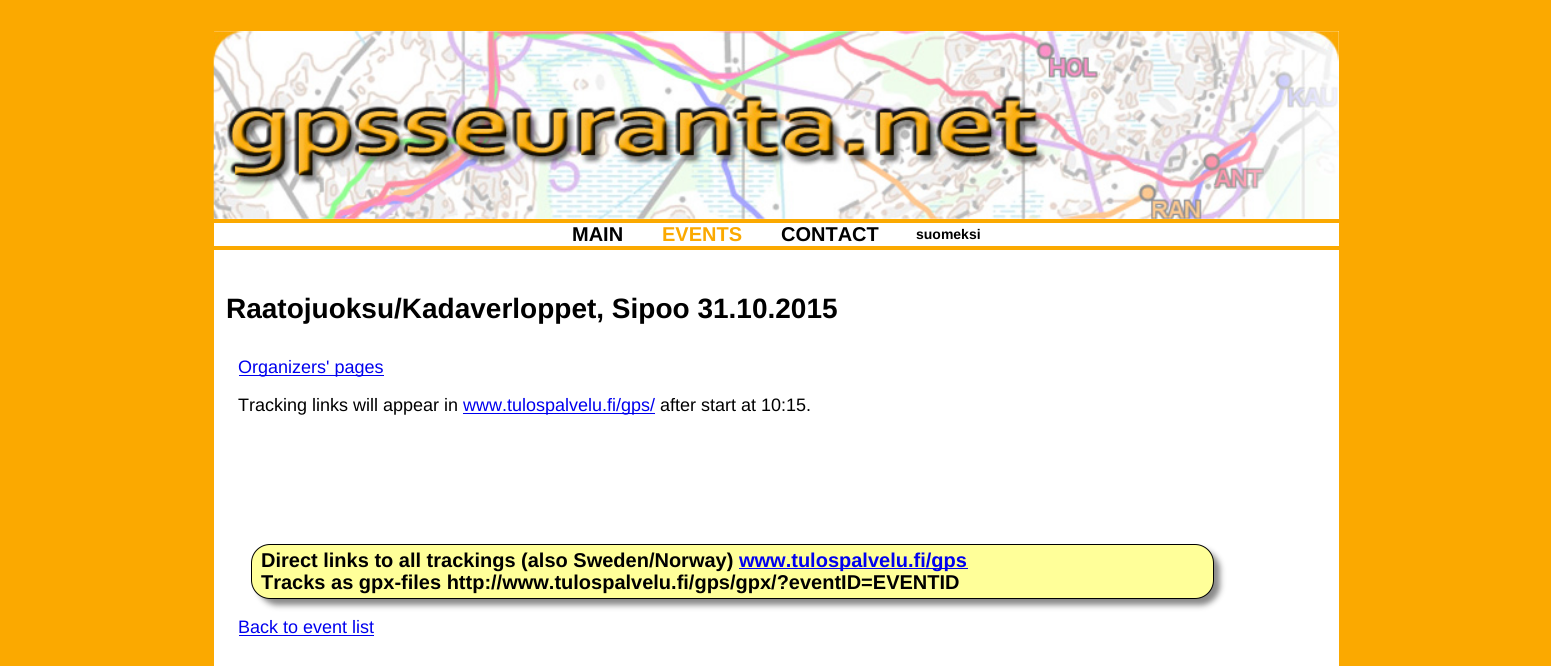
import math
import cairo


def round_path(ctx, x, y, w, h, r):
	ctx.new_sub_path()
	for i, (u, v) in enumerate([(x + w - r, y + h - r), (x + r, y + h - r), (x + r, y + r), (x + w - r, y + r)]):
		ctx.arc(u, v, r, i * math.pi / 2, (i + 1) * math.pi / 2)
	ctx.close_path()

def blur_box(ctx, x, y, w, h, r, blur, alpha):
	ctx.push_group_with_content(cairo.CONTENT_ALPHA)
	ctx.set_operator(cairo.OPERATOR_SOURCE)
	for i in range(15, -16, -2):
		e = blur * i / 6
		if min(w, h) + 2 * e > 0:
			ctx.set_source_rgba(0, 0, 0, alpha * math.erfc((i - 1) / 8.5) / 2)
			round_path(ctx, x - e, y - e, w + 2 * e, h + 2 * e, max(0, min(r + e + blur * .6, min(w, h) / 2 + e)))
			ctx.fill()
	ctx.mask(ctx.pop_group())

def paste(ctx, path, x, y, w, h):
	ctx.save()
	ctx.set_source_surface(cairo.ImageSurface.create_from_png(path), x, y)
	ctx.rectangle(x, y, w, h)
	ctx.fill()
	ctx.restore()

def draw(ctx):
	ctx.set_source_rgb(0.984, 0.663, 0)
	ctx.paint()
	ctx.set_source_rgb(1, 1, 1)
	ctx.rectangle(214, 31, 1125, 215)
	ctx.fill()
	paste(ctx, 'media/1.png', 213, 31, 1126, 188)
	ctx.set_source_rgb(0.984, 0.663, 0)
	ctx.rectangle(214, 219, 1125, 4)
	ctx.fill()
	ctx.select_font_face('Liberation Sans', cairo.FONT_SLANT_NORMAL, cairo.FONT_WEIGHT_BOLD)
	ctx.set_font_size(20)
	ctx.set_source_rgb(0, 0, 0)
	ctx.move_to(572, 241)
	ctx.show_text('MAIN')
	ctx.set_source_rgb(0.984, 0.663, 0)
	ctx.move_to(662, 241)
	ctx.show_text('EVENTS')
	ctx.set_source_rgb(0, 0, 0)
	ctx.move_to(781, 241)
	ctx.show_text('CONTACT')
	ctx.set_font_size(14)
	ctx.move_to(916, 239)
	ctx.show_text('suomeksi')
	ctx.set_source_rgb(1, 1, 1)
	ctx.rectangle(214, 250, 1125, 416)
	ctx.fill()
	ctx.set_font_size(28)
	ctx.set_source_rgb(0, 0, 0)
	ctx.move_to(226, 318)
	ctx.show_text('Raatojuoksu/Kadaverloppet, Sipoo 31.10.2015')
	ctx.set_source_rgb(0, 0, 0.933)
	ctx.rectangle(239, 375, 145, 1)
	ctx.fill()
	ctx.select_font_face('Liberation Sans')
	ctx.set_font_size(18)
	ctx.move_to(238, 373)
	ctx.show_text('Organizers\' pages')
	ctx.set_source_rgb(0, 0, 0)
	ctx.move_to(238, 411)
	ctx.show_text('Tracking links will appear in')
	ctx.set_source_rgb(0, 0, 0.933)
	ctx.rectangle(463, 413, 192, 1)
	ctx.fill()
	ctx.move_to(463, 411)
	ctx.show_text('www.tulospalvelu.fi/gps/')
	ctx.set_source_rgb(0, 0, 0)
	ctx.move_to(660, 411)
	ctx.show_text('after start at 10:15.')
	ctx.set_source_rgb(0.533, 0.533, 0.533)
	blur_box(ctx, 258, 550, 962, 55, 19, 3, 1)
	ctx.set_source_rgb(1, 1, 0.6)
	round_path(ctx, 251.5, 544.5, 962, 54, 18.5)
	ctx.fill_preserve()
	ctx.set_source_rgb(0, 0, 0)
	ctx.set_line_width(1)
	ctx.stroke()
	ctx.select_font_face('Liberation Sans', cairo.FONT_SLANT_NORMAL, cairo.FONT_WEIGHT_BOLD)
	ctx.set_font_size(20)
	ctx.move_to(261, 567)
	ctx.show_text('Direct links to all trackings (also Sweden/Norway)')
	ctx.set_source_rgb(0, 0, 0.933)
	ctx.rectangle(739, 568, 229, 1)
	ctx.fill()
	ctx.move_to(739, 567)
	ctx.show_text('www.tulospalvelu.fi/gps')
	ctx.set_source_rgb(0, 0, 0)
	ctx.move_to(261, 589)
	ctx.show_text('Tracks as gpx-files http://www.tulospalvelu.fi/gps/gpx/?eventID=EVENTID')
	ctx.select_font_face('Liberation Sans')
	ctx.set_font_size(18)
	ctx.set_source_rgb(0, 0, 0.933)
	ctx.move_to(238, 633)
	ctx.show_text('Back to event list')
	ctx.rectangle(239, 635, 135, 1)
	ctx.fill()


surface = cairo.ImageSurface(cairo.FORMAT_RGB24, 1551, 666)
ctx = cairo.Context(surface)
options = cairo.FontOptions()
options.set_hint_metrics(cairo.HINT_METRICS_OFF)
options.set_hint_style(cairo.HINT_STYLE_NONE)
ctx.set_font_options(options)
ctx.set_miter_limit(4)
draw(ctx)
surface.write_to_png('image.png')
